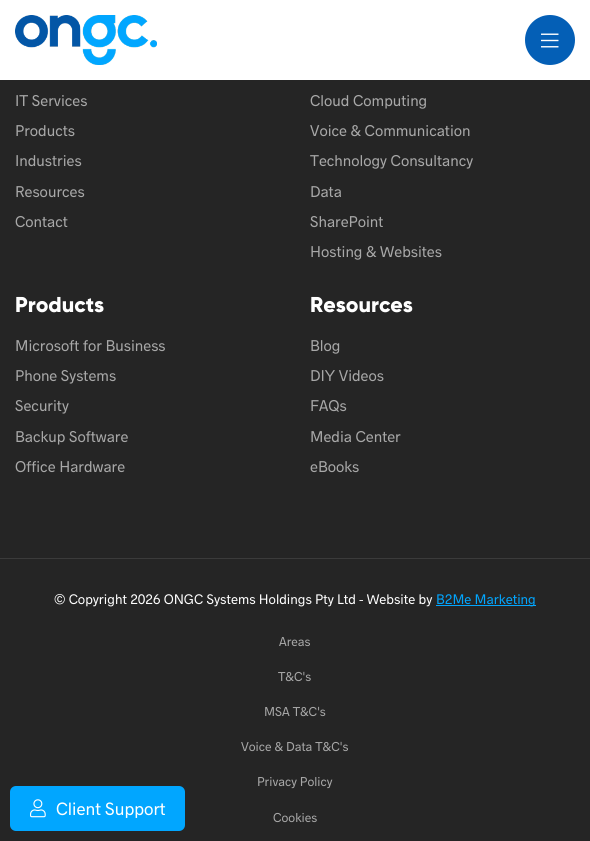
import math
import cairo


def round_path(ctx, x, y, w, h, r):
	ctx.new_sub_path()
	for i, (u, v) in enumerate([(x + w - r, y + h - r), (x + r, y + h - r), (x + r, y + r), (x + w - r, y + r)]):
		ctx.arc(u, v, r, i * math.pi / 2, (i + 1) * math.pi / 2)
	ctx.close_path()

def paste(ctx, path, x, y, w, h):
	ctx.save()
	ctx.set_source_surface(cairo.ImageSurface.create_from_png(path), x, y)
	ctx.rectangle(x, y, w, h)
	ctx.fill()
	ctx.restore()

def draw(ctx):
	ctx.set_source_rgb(0.145, 0.145, 0.145)
	ctx.paint()
	ctx.set_source_rgb(1, 1, 1)
	ctx.rectangle(0, 0, 590, 80)
	ctx.fill()
	paste(ctx, 'media/1.png', 15, 15, 142, 50)
	ctx.set_source_rgb(0.016, 0.373, 0.714)
	ctx.arc(550, 40, 25, 0, 2 * math.pi)
	ctx.fill()
	paste(ctx, 'media/2.png', 541, 33, 18, 15)
	ctx.select_font_face('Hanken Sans')
	ctx.set_font_size(15.75)
	ctx.set_source_rgb(0.659, 0.659, 0.659)
	for x, y, s in [
		(15, 106, 'IT Services'),
		(15, 136, 'Products'),
		(15, 166, 'Industries'),
		(15, 197, 'Resources'),
		(15, 227, 'Contact'),
		(310, 106, 'Cloud Computing'),
		(310, 136, 'Voice & Communication'),
		(310, 166, 'Technology Consultancy'),
		(310, 197, 'Data'),
		(310, 227, 'SharePoint'),
		(310, 257, 'Hosting & Websites'),
	]:
		ctx.move_to(x, y)
		ctx.show_text(s)
	ctx.select_font_face('Gilroy ExtraBold')
	ctx.set_font_size(21.5)
	ctx.set_source_rgb(1, 1, 1)
	ctx.move_to(15, 312)
	ctx.show_text('Products')
	ctx.select_font_face('Hanken Sans')
	ctx.set_font_size(15.75)
	ctx.set_source_rgb(0.659, 0.659, 0.659)
	for x, y, s in [
		(15, 351, 'Microsoft for Business'),
		(15, 381, 'Phone Systems'),
		(15, 411, 'Security'),
		(15, 442, 'Backup Software'),
		(15, 472, 'Office Hardware'),
	]:
		ctx.move_to(x, y)
		ctx.show_text(s)
	ctx.select_font_face('Gilroy ExtraBold')
	ctx.set_font_size(21.5)
	ctx.set_source_rgb(1, 1, 1)
	ctx.move_to(310, 312)
	ctx.show_text('Resources')
	ctx.select_font_face('Hanken Sans')
	ctx.set_font_size(15.75)
	ctx.set_source_rgb(0.659, 0.659, 0.659)
	for x, y, s in [
		(310, 351, 'Blog'),
		(310, 381, 'DIY Videos'),
		(310, 411, 'FAQs'),
		(310, 442, 'Media Center'),
		(310, 472, 'eBooks'),
	]:
		ctx.move_to(x, y)
		ctx.show_text(s)
	ctx.set_source_rgb(0.231, 0.231, 0.231)
	ctx.rectangle(0, 558, 590, 1)
	ctx.fill()
	ctx.set_font_size(14)
	ctx.set_source_rgb(1, 1, 1)
	ctx.move_to(54, 604)
	ctx.show_text('© Copyright 2026 ONGC Systems Holdings Pty Ltd - Website by')
	ctx.set_source_rgb(0.004, 0.651, 1)
	ctx.rectangle(436, 605, 100, 1)
	ctx.fill()
	ctx.move_to(436, 604)
	ctx.show_text('B2Me Marketing')
	ctx.set_font_size(13)
	ctx.set_source_rgb(0.659, 0.659, 0.659)
	for x, y, s in [
		(279, 646, 'Areas'),
		(278, 681, 'T&C\'s'),
		(264, 716, 'MSA T&C\'s'),
		(241, 751, 'Voice & Data T&C\'s'),
		(257, 786, 'Privacy Policy'),
		(273, 822, 'Cookies'),
	]:
		ctx.move_to(x, y)
		ctx.show_text(s)
	ctx.set_source_rgb(0.004, 0.651, 1)
	round_path(ctx, 10, 786, 175, 45, 6)
	ctx.fill()
	paste(ctx, 'media/3.png', 30, 799, 16, 19)
	ctx.set_font_size(18)
	ctx.set_source_rgb(1, 1, 1)
	ctx.move_to(56, 815)
	ctx.show_text('Client Support')


surface = cairo.ImageSurface(cairo.FORMAT_RGB24, 590, 841)
ctx = cairo.Context(surface)
options = cairo.FontOptions()
options.set_hint_metrics(cairo.HINT_METRICS_OFF)
options.set_hint_style(cairo.HINT_STYLE_NONE)
ctx.set_font_options(options)
ctx.set_miter_limit(4)
draw(ctx)
surface.write_to_png('image.png')
